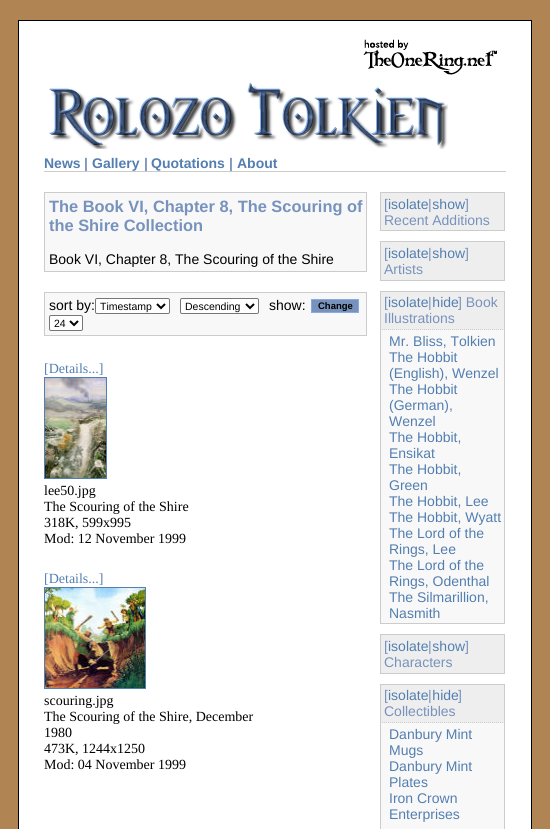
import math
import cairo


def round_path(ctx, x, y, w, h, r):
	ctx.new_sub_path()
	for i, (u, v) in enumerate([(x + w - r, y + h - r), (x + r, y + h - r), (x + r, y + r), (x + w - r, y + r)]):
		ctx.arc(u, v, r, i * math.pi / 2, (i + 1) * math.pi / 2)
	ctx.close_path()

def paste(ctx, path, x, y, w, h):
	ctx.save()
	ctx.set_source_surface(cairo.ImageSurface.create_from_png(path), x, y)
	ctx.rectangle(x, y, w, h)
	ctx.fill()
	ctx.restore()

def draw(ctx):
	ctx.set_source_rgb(0.69, 0.522, 0.325)
	ctx.paint()
	ctx.set_source_rgb(1, 1, 1)
	ctx.rectangle(18.5, 20.5, 513, 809)
	ctx.fill_preserve()
	ctx.set_source_rgb(0, 0, 0)
	ctx.set_line_width(1)
	ctx.stroke()
	paste(ctx, 'media/1.png', 363, 39, 134, 36)
	paste(ctx, 'media/2.png', 49, 82, 399, 67)
	ctx.set_source_rgb(0.8, 0.8, 0.8)
	ctx.rectangle(44, 171, 462, 1)
	ctx.fill()
	ctx.select_font_face('Liberation Sans', cairo.FONT_SLANT_NORMAL, cairo.FONT_WEIGHT_BOLD)
	ctx.set_font_size(14)
	ctx.set_source_rgb(0.325, 0.494, 0.69)
	ctx.move_to(44, 168)
	ctx.show_text('News')
	ctx.set_source_rgb(0.467, 0.573, 0.737)
	ctx.move_to(84, 168)
	ctx.show_text('|')
	ctx.set_source_rgb(0.325, 0.494, 0.69)
	ctx.move_to(92, 168)
	ctx.show_text('Gallery')
	ctx.set_source_rgb(0.467, 0.573, 0.737)
	ctx.move_to(144, 168)
	ctx.show_text('|')
	ctx.set_source_rgb(0.325, 0.494, 0.69)
	ctx.move_to(151, 168)
	ctx.show_text('Quotations')
	ctx.set_source_rgb(0.467, 0.573, 0.737)
	ctx.move_to(229, 168)
	ctx.show_text('|')
	ctx.set_source_rgb(0.325, 0.494, 0.69)
	ctx.move_to(237, 168)
	ctx.show_text('About')
	ctx.set_source_rgb(0.969, 0.969, 0.969)
	ctx.rectangle(44.5, 192.5, 322, 79)
	ctx.fill_preserve()
	ctx.set_source_rgb(0.8, 0.8, 0.8)
	ctx.stroke()
	ctx.set_font_size(16.4)
	ctx.set_source_rgb(0.467, 0.573, 0.737)
	ctx.move_to(49, 212)
	ctx.show_text('The Book VI, Chapter 8, The Scouring of')
	ctx.move_to(49, 231)
	ctx.show_text('the Shire Collection')
	ctx.select_font_face('Liberation Sans')
	ctx.set_font_size(14)
	ctx.set_source_rgb(0, 0, 0)
	ctx.move_to(49, 264)
	ctx.show_text('Book VI, Chapter 8, The Scouring of the Shire')
	ctx.set_source_rgb(0.969, 0.969, 0.969)
	ctx.rectangle(44.5, 292.5, 322, 43)
	ctx.fill_preserve()
	ctx.set_source_rgb(0.8, 0.8, 0.8)
	ctx.stroke()
	ctx.set_source_rgb(0, 0, 0)
	ctx.move_to(49, 310)
	ctx.show_text('sort by:')
	ctx.set_source_rgb(1, 1, 1)
	round_path(ctx, 95.5, 298.5, 74, 15, 1.5)
	ctx.fill_preserve()
	ctx.set_source_rgb(0.463, 0.463, 0.463)
	ctx.stroke()
	ctx.new_path()
	ctx.move_to(157, 304)
	ctx.line_to(161, 308)
	ctx.line_to(165, 304)
	ctx.set_source_rgb(0, 0, 0)
	ctx.set_line_width(2)
	ctx.stroke()
	ctx.set_font_size(10.5)
	ctx.move_to(100, 310)
	ctx.show_text('Timestamp')
	ctx.set_source_rgb(1, 1, 1)
	round_path(ctx, 180.5, 298.5, 78, 15, 1.5)
	ctx.fill_preserve()
	ctx.set_source_rgb(0.463, 0.463, 0.463)
	ctx.set_line_width(1)
	ctx.stroke()
	ctx.new_path()
	ctx.move_to(246, 304)
	ctx.line_to(250, 308)
	ctx.line_to(254, 304)
	ctx.set_source_rgb(0, 0, 0)
	ctx.set_line_width(2)
	ctx.stroke()
	ctx.move_to(185, 310)
	ctx.show_text('Descending')
	ctx.set_font_size(14)
	ctx.move_to(269, 310)
	ctx.show_text('show:')
	ctx.set_source_rgb(0.467, 0.573, 0.737)
	ctx.rectangle(311.5, 299.5, 47, 13)
	ctx.fill_preserve()
	ctx.set_source_rgb(0.533, 0.667, 0.867)
	ctx.set_line_width(1)
	ctx.stroke()
	ctx.select_font_face('Liberation Sans', cairo.FONT_SLANT_NORMAL, cairo.FONT_WEIGHT_BOLD)
	ctx.set_font_size(9.5)
	ctx.set_source_rgb(0, 0, 0)
	ctx.move_to(318, 309)
	ctx.show_text('Change')
	ctx.set_source_rgb(1, 1, 1)
	round_path(ctx, 49.5, 315.5, 33, 15, 1.5)
	ctx.fill_preserve()
	ctx.set_source_rgb(0.463, 0.463, 0.463)
	ctx.stroke()
	ctx.new_path()
	ctx.move_to(70, 321)
	ctx.line_to(74, 325)
	ctx.line_to(78, 321)
	ctx.set_source_rgb(0, 0, 0)
	ctx.set_line_width(2)
	ctx.stroke()
	ctx.select_font_face('Liberation Sans')
	ctx.set_font_size(10.5)
	ctx.move_to(54, 327)
	ctx.show_text('24')
	ctx.select_font_face('Liberation Serif')
	ctx.set_font_size(14)
	ctx.set_source_rgb(0.325, 0.494, 0.69)
	ctx.move_to(44, 373)
	ctx.show_text('[Details...]')
	ctx.rectangle(44.5, 377.5, 62, 101)
	ctx.set_line_width(1)
	ctx.stroke()
	paste(ctx, 'media/3.png', 45, 378, 61, 100)
	ctx.set_source_rgb(0, 0, 0)
	for x, y, s in [
		(44, 495, 'lee50.jpg'),
		(44, 511, 'The Scouring of the Shire'),
		(44, 527, '318K, 599x995'),
		(44, 543, 'Mod: 12 November 1999'),
	]:
		ctx.move_to(x, y)
		ctx.show_text(s)
	ctx.set_source_rgb(0.325, 0.494, 0.69)
	ctx.move_to(44, 583)
	ctx.show_text('[Details...]')
	ctx.rectangle(44.5, 587.5, 101, 101)
	ctx.stroke()
	paste(ctx, 'media/4.png', 45, 588, 100, 100)
	ctx.set_source_rgb(0, 0, 0)
	for x, y, s in [
		(44, 705, 'scouring.jpg'),
		(44, 721, 'The Scouring of the Shire, December'),
		(44, 737, '1980'),
		(44, 753, '473K, 1244x1250'),
		(44, 769, 'Mod: 04 November 1999'),
	]:
		ctx.move_to(x, y)
		ctx.show_text(s)
	ctx.set_source_rgb(0.933, 0.933, 0.933)
	ctx.rectangle(380.5, 192.5, 124, 38)
	ctx.fill_preserve()
	ctx.set_source_rgb(0.8, 0.8, 0.8)
	ctx.stroke()
	ctx.select_font_face('Liberation Sans')
	ctx.set_source_rgb(0.467, 0.573, 0.737)
	ctx.move_to(384, 209)
	ctx.show_text('[')
	ctx.set_source_rgb(0.325, 0.494, 0.69)
	ctx.move_to(388, 209)
	ctx.show_text('isolate show')
	ctx.set_source_rgb(0.467, 0.573, 0.737)
	for x, y, s in [
		(428, 209, '|'),
		(465, 209, ']'),
		(384, 225, 'Recent Additions'),
	]:
		ctx.move_to(x, y)
		ctx.show_text(s)
	ctx.set_source_rgb(0.933, 0.933, 0.933)
	ctx.rectangle(380.5, 241.5, 124, 39)
	ctx.fill_preserve()
	ctx.set_source_rgb(0.8, 0.8, 0.8)
	ctx.stroke()
	ctx.set_source_rgb(0.467, 0.573, 0.737)
	ctx.move_to(384, 258)
	ctx.show_text('[')
	ctx.set_source_rgb(0.325, 0.494, 0.69)
	ctx.move_to(388, 258)
	ctx.show_text('isolate show')
	ctx.set_source_rgb(0.467, 0.573, 0.737)
	for x, y, s in [
		(428, 258, '|'),
		(465, 258, ']'),
		(384, 274, 'Artists'),
	]:
		ctx.move_to(x, y)
		ctx.show_text(s)
	ctx.set_source_rgb(0.933, 0.933, 0.933)
	ctx.rectangle(381, 292, 123, 38)
	ctx.fill()
	ctx.set_source_rgb(0.8, 0.8, 0.8)
	ctx.rectangle(380, 291, 125, 1)
	ctx.rectangle(504, 291, 1, 333)
	ctx.fill()
	ctx.new_path()
	ctx.move_to(380, 329.5)
	ctx.line_to(505, 329.5)
	ctx.set_dash([1, 1])
	ctx.stroke()
	ctx.rectangle(380, 291, 1, 39)
	ctx.fill()
	ctx.set_source_rgb(0.467, 0.573, 0.737)
	ctx.move_to(384, 307)
	ctx.show_text('[')
	ctx.set_source_rgb(0.325, 0.494, 0.69)
	ctx.move_to(388, 307)
	ctx.show_text('isolate hide')
	ctx.set_source_rgb(0.467, 0.573, 0.737)
	for x, y, s in [
		(428, 307, '|'),
		(458, 307, '] Book'),
		(384, 323, 'Illustrations'),
	]:
		ctx.move_to(x, y)
		ctx.show_text(s)
	ctx.set_source_rgb(0.969, 0.969, 0.969)
	ctx.rectangle(381, 330, 123, 293)
	ctx.fill()
	ctx.set_source_rgb(0.8, 0.8, 0.8)
	ctx.rectangle(380, 623, 125, 1)
	ctx.rectangle(380, 330, 1, 294)
	ctx.fill()
	ctx.set_source_rgb(0.325, 0.494, 0.69)
	for x, y, s in [
		(389, 346, 'Mr. Bliss, Tolkien'),
		(389, 362, 'The Hobbit'),
		(389, 378, '(English), Wenzel'),
		(389, 394, 'The Hobbit'),
		(389, 410, '(German),'),
		(389, 426, 'Wenzel'),
		(389, 442, 'The Hobbit,'),
		(389, 458, 'Ensikat'),
		(389, 474, 'The Hobbit,'),
		(389, 490, 'Green'),
		(389, 506, 'The Hobbit, Lee'),
		(389, 522, 'The Hobbit, Wyatt'),
		(389, 538, 'The Lord of the'),
		(389, 554, 'Rings, Lee'),
		(389, 570, 'The Lord of the'),
		(389, 586, 'Rings, Odenthal'),
		(389, 602, 'The Silmarillion,'),
		(389, 618, 'Nasmith'),
	]:
		ctx.move_to(x, y)
		ctx.show_text(s)
	ctx.set_source_rgb(0.933, 0.933, 0.933)
	ctx.rectangle(380.5, 634.5, 124, 39)
	ctx.fill_preserve()
	ctx.set_source_rgb(0.8, 0.8, 0.8)
	ctx.set_dash([])
	ctx.stroke()
	ctx.set_source_rgb(0.467, 0.573, 0.737)
	ctx.move_to(384, 651)
	ctx.show_text('[')
	ctx.set_source_rgb(0.325, 0.494, 0.69)
	ctx.move_to(388, 651)
	ctx.show_text('isolate show')
	ctx.set_source_rgb(0.467, 0.573, 0.737)
	for x, y, s in [
		(428, 651, '|'),
		(465, 651, ']'),
		(384, 667, 'Characters'),
	]:
		ctx.move_to(x, y)
		ctx.show_text(s)
	ctx.set_source_rgb(0.933, 0.933, 0.933)
	ctx.rectangle(381, 685, 123, 38)
	ctx.fill()
	ctx.set_source_rgb(0.8, 0.8, 0.8)
	ctx.rectangle(380, 684, 125, 1)
	ctx.rectangle(504, 684, 1, 145)
	ctx.fill()
	ctx.new_path()
	ctx.move_to(380, 722.5)
	ctx.line_to(505, 722.5)
	ctx.set_dash([1, 1])
	ctx.stroke()
	ctx.rectangle(380, 684, 1, 145)
	ctx.fill()
	ctx.set_source_rgb(0.467, 0.573, 0.737)
	ctx.move_to(384, 700)
	ctx.show_text('[')
	ctx.set_source_rgb(0.325, 0.494, 0.69)
	ctx.move_to(388, 700)
	ctx.show_text('isolate hide')
	ctx.set_source_rgb(0.467, 0.573, 0.737)
	for x, y, s in [
		(428, 700, '|'),
		(458, 700, ']'),
		(384, 716, 'Collectibles'),
	]:
		ctx.move_to(x, y)
		ctx.show_text(s)
	ctx.set_source_rgb(0.969, 0.969, 0.969)
	ctx.rectangle(381, 723, 123, 106)
	ctx.fill()
	ctx.set_source_rgb(0.325, 0.494, 0.69)
	for x, y, s in [
		(389, 739, 'Danbury Mint'),
		(389, 755, 'Mugs'),
		(389, 771, 'Danbury Mint'),
		(389, 787, 'Plates'),
		(389, 803, 'Iron Crown'),
		(389, 819, 'Enterprises'),
	]:
		ctx.move_to(x, y)
		ctx.show_text(s)


surface = cairo.ImageSurface(cairo.FORMAT_RGB24, 550, 829)
ctx = cairo.Context(surface)
options = cairo.FontOptions()
options.set_hint_metrics(cairo.HINT_METRICS_OFF)
options.set_hint_style(cairo.HINT_STYLE_NONE)
ctx.set_font_options(options)
ctx.set_miter_limit(4)
draw(ctx)
surface.write_to_png('image.png')
